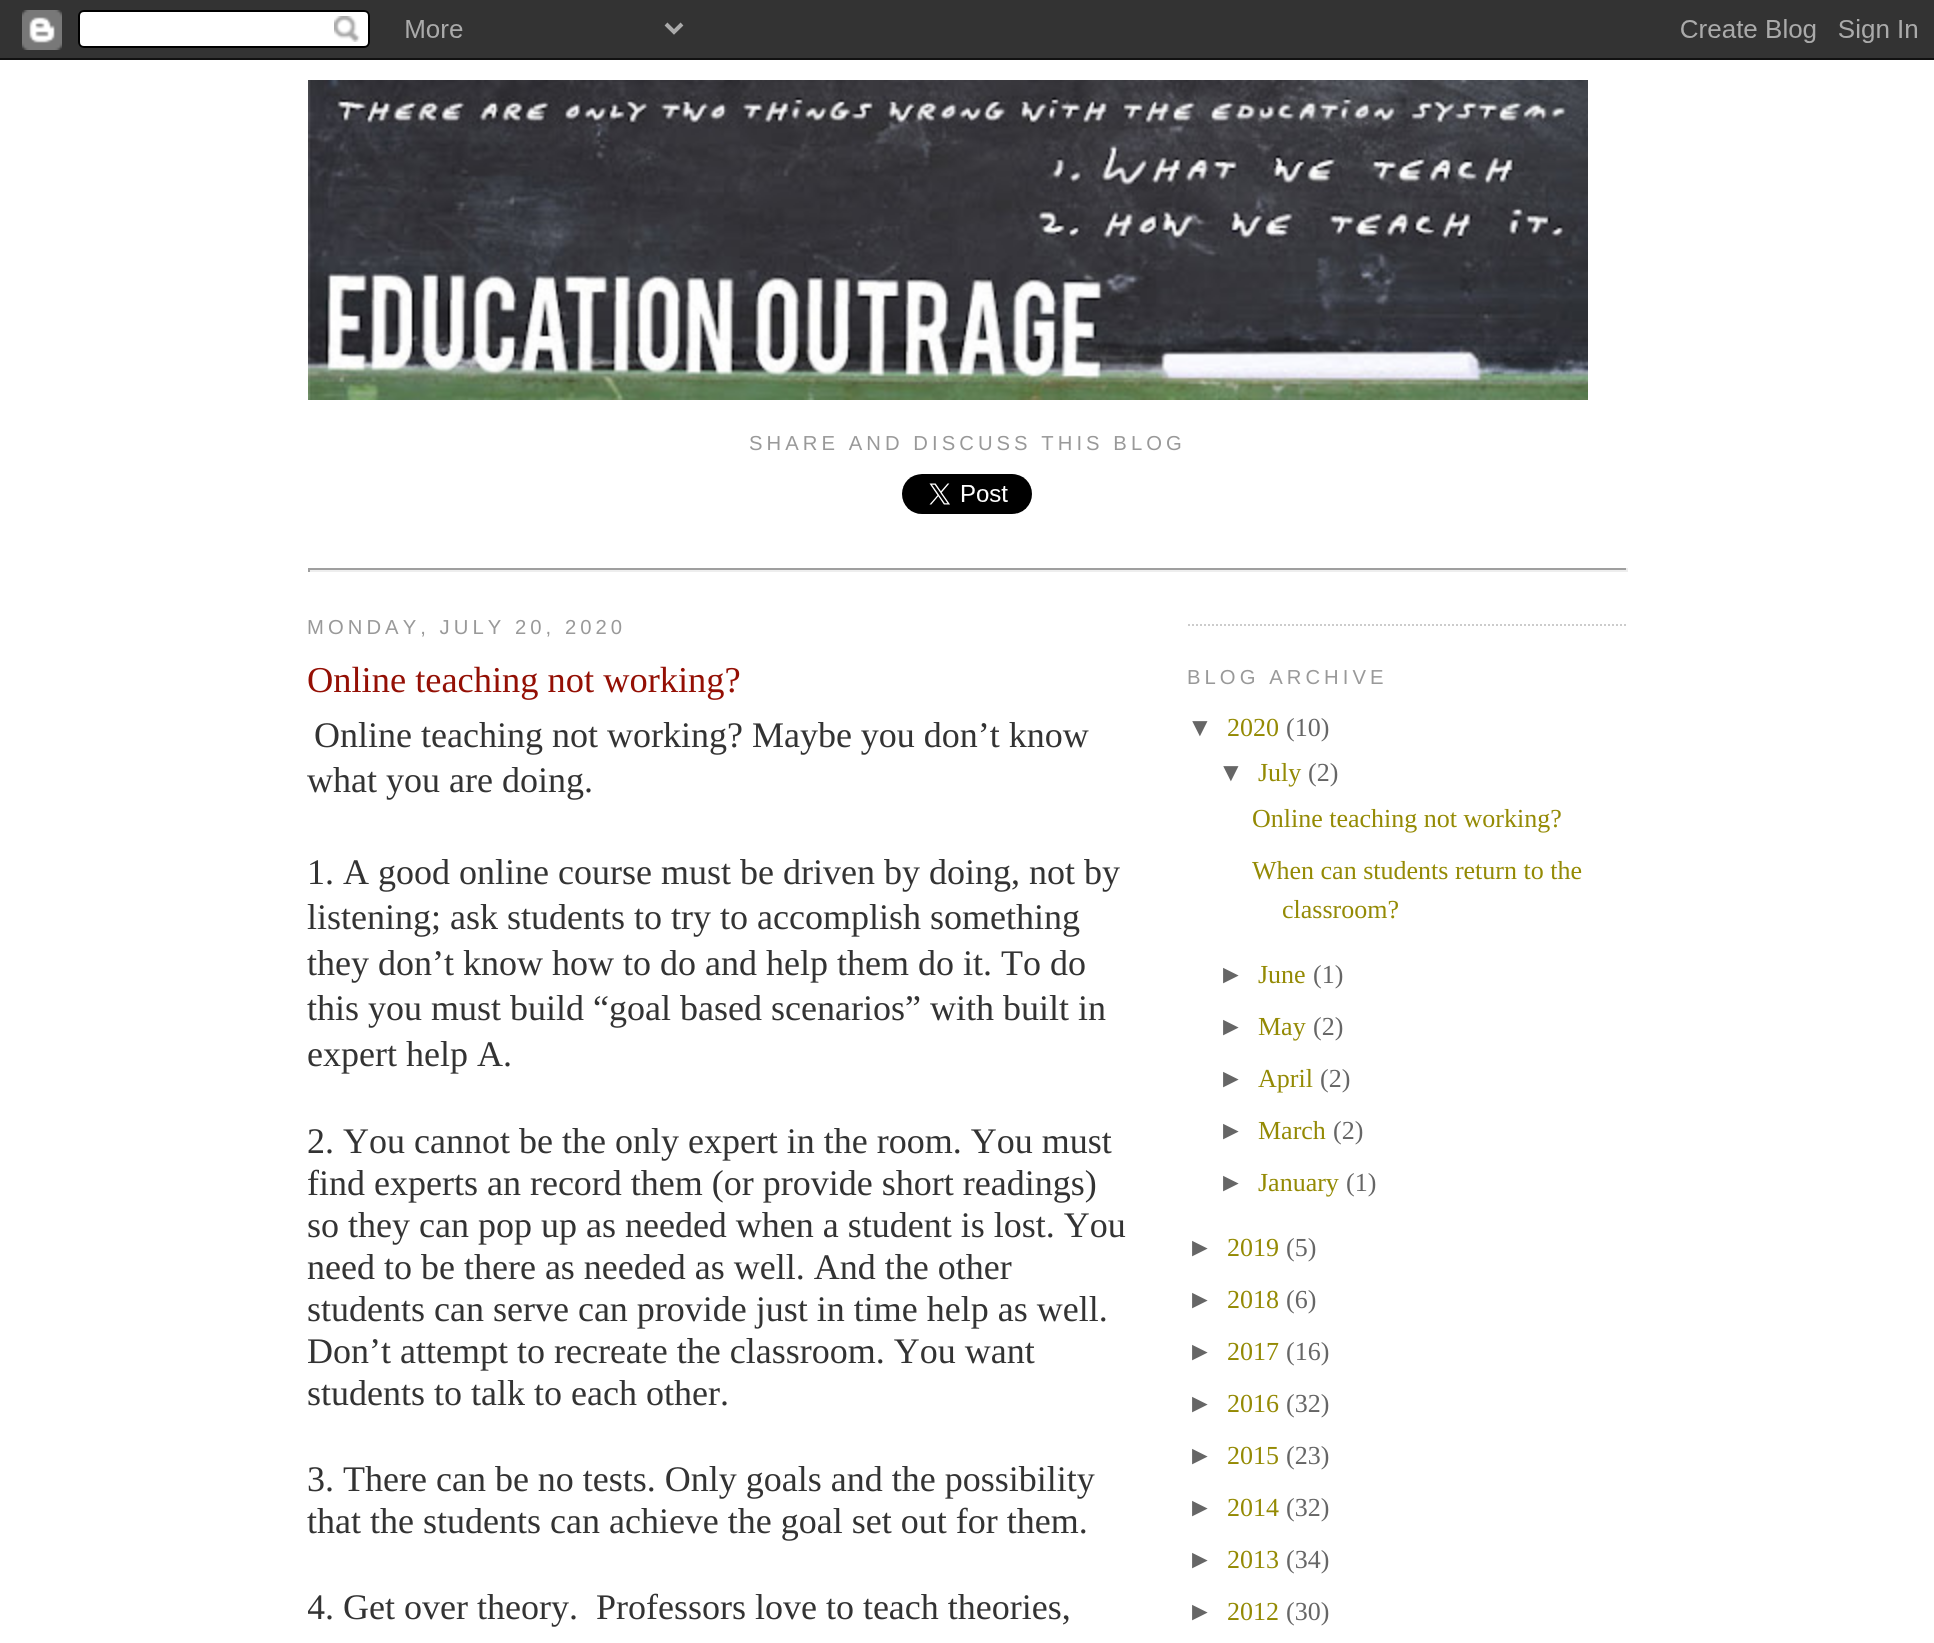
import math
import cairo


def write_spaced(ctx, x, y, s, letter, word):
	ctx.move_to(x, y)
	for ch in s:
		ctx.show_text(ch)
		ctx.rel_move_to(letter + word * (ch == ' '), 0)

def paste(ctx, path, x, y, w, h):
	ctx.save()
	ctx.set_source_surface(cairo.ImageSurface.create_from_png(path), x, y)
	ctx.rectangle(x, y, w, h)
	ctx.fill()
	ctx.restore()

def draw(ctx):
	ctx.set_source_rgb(1, 1, 1)
	ctx.paint()
	paste(ctx, 'media/1.png', 0, 0, 1934, 60)
	paste(ctx, 'media/2.png', 308, 80, 1280, 320)
	ctx.select_font_face('Liberation Sans')
	ctx.set_font_size(20.25)
	ctx.set_source_rgb(0.6, 0.6, 0.6)
	write_spaced(ctx, 749, 450, 'SHARE AND DISCUSS THIS BLOG', 4.05, 0)
	paste(ctx, 'media/3.png', 902, 474, 130, 40)
	ctx.set_source_rgb(0.624, 0.624, 0.624)
	ctx.rectangle(308, 568, 1320, 2)
	ctx.fill()
	ctx.set_source_rgb(0.933, 0.933, 0.933)
	ctx.rectangle(1626, 568, 2, 4)
	ctx.rectangle(308, 570, 1320, 2)
	ctx.fill()
	ctx.set_source_rgb(0.624, 0.624, 0.624)
	ctx.rectangle(308, 568, 2, 4)
	ctx.fill()
	ctx.set_source_rgb(0.6, 0.6, 0.6)
	write_spaced(ctx, 307, 634, 'MONDAY, JULY 20, 2020', 4.05, 0)
	ctx.select_font_face('Liberation Serif')
	ctx.set_font_size(36.4)
	ctx.set_source_rgb(0.58, 0.059, 0.016)
	ctx.move_to(307, 692)
	ctx.show_text('Online teaching not working?')
	ctx.set_font_size(36)
	ctx.set_source_rgb(0.2, 0.2, 0.2)
	for x, y, s in [
		(314, 747, 'Online teaching not working? Maybe you don’t know'),
		(307, 792, 'what you are doing.'),
		(307, 884, '1. A good online course must be driven by doing, not by'),
		(307, 929, 'listening; ask students to try to accomplish something'),
		(307, 975, 'they don’t know how to do and help them do it. To do'),
		(307, 1020, 'this you must build “goal based scenarios” with built in'),
		(307, 1066, 'expert help A.'),
		(307, 1153, '2. You cannot be the only expert in the room. You must'),
		(307, 1195, 'find experts an record them (or provide short readings)'),
		(307, 1237, 'so they can pop up as needed when a student is lost. You'),
		(307, 1279, 'need to be there as needed as well. And the other'),
		(307, 1321, 'students can serve can provide just in time help as well.'),
		(307, 1363, 'Don’t attempt to recreate the classroom. You want'),
		(307, 1405, 'students to talk to each other.'),
		(307, 1491, '3. There can be no tests. Only goals and the possibility'),
		(307, 1533, 'that the students can achieve the goal set out for them.'),
	]:
		ctx.move_to(x, y)
		ctx.show_text(s)
	ctx.save()
	ctx.rectangle(308, 584, 820, 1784)
	ctx.clip()
	ctx.move_to(307, 1619)
	ctx.show_text('4. Get over theory.  Professors love to teach theories,')
	ctx.restore()
	ctx.new_path()
	ctx.move_to(1188, 625)
	ctx.line_to(1628, 625)
	ctx.set_source_rgb(0.8, 0.8, 0.8)
	ctx.set_dash([2, 2])
	ctx.stroke()
	ctx.select_font_face('Liberation Sans')
	ctx.set_font_size(20.25)
	ctx.set_source_rgb(0.6, 0.6, 0.6)
	write_spaced(ctx, 1187, 684, 'BLOG ARCHIVE', 4.05, 0)
	ctx.set_font_size(26)
	ctx.set_source_rgb(0.4, 0.4, 0.4)
	ctx.move_to(1187, 736)
	ctx.show_text('▼')
	ctx.select_font_face('Liberation Serif')
	ctx.set_source_rgb(0.58, 0.541, 0.016)
	ctx.move_to(1227, 736)
	ctx.show_text('2020')
	ctx.set_source_rgb(0.4, 0.4, 0.4)
	ctx.move_to(1286, 736)
	ctx.show_text('(10)')
	ctx.select_font_face('Liberation Sans')
	ctx.move_to(1218, 781)
	ctx.show_text('▼')
	ctx.select_font_face('Liberation Serif')
	ctx.set_source_rgb(0.58, 0.541, 0.016)
	ctx.move_to(1258, 781)
	ctx.show_text('July')
	ctx.set_source_rgb(0.4, 0.4, 0.4)
	ctx.move_to(1308, 781)
	ctx.show_text('(2)')
	ctx.set_source_rgb(0.58, 0.541, 0.016)
	for x, y, s in [
		(1252, 827, 'Online teaching not working?'),
		(1252, 879, 'When can students return to the'),
		(1282, 918, 'classroom?'),
	]:
		ctx.move_to(x, y)
		ctx.show_text(s)
	ctx.select_font_face('Liberation Sans')
	ctx.set_source_rgb(0.4, 0.4, 0.4)
	ctx.move_to(1218, 983)
	ctx.show_text('►')
	ctx.select_font_face('Liberation Serif')
	ctx.set_source_rgb(0.58, 0.541, 0.016)
	ctx.move_to(1258, 983)
	ctx.show_text('June')
	ctx.set_source_rgb(0.4, 0.4, 0.4)
	ctx.move_to(1313, 983)
	ctx.show_text('(1)')
	ctx.select_font_face('Liberation Sans')
	ctx.move_to(1218, 1035)
	ctx.show_text('►')
	ctx.select_font_face('Liberation Serif')
	ctx.set_source_rgb(0.58, 0.541, 0.016)
	ctx.move_to(1258, 1035)
	ctx.show_text('May')
	ctx.set_source_rgb(0.4, 0.4, 0.4)
	ctx.move_to(1313, 1035)
	ctx.show_text('(2)')
	ctx.select_font_face('Liberation Sans')
	ctx.move_to(1218, 1087)
	ctx.show_text('►')
	ctx.select_font_face('Liberation Serif')
	ctx.set_source_rgb(0.58, 0.541, 0.016)
	ctx.move_to(1258, 1087)
	ctx.show_text('April')
	ctx.set_source_rgb(0.4, 0.4, 0.4)
	ctx.move_to(1320, 1087)
	ctx.show_text('(2)')
	ctx.select_font_face('Liberation Sans')
	ctx.move_to(1218, 1139)
	ctx.show_text('►')
	ctx.select_font_face('Liberation Serif')
	ctx.set_source_rgb(0.58, 0.541, 0.016)
	ctx.move_to(1258, 1139)
	ctx.show_text('March')
	ctx.set_source_rgb(0.4, 0.4, 0.4)
	ctx.move_to(1333, 1139)
	ctx.show_text('(2)')
	ctx.select_font_face('Liberation Sans')
	ctx.move_to(1218, 1191)
	ctx.show_text('►')
	ctx.select_font_face('Liberation Serif')
	ctx.set_source_rgb(0.58, 0.541, 0.016)
	ctx.move_to(1258, 1191)
	ctx.show_text('January')
	ctx.set_source_rgb(0.4, 0.4, 0.4)
	ctx.move_to(1346, 1191)
	ctx.show_text('(1)')
	ctx.select_font_face('Liberation Sans')
	ctx.move_to(1187, 1256)
	ctx.show_text('►')
	ctx.select_font_face('Liberation Serif')
	ctx.set_source_rgb(0.58, 0.541, 0.016)
	ctx.move_to(1227, 1256)
	ctx.show_text('2019')
	ctx.set_source_rgb(0.4, 0.4, 0.4)
	ctx.move_to(1286, 1256)
	ctx.show_text('(5)')
	ctx.select_font_face('Liberation Sans')
	ctx.move_to(1187, 1308)
	ctx.show_text('►')
	ctx.select_font_face('Liberation Serif')
	ctx.set_source_rgb(0.58, 0.541, 0.016)
	ctx.move_to(1227, 1308)
	ctx.show_text('2018')
	ctx.set_source_rgb(0.4, 0.4, 0.4)
	ctx.move_to(1286, 1308)
	ctx.show_text('(6)')
	ctx.select_font_face('Liberation Sans')
	ctx.move_to(1187, 1360)
	ctx.show_text('►')
	ctx.select_font_face('Liberation Serif')
	ctx.set_source_rgb(0.58, 0.541, 0.016)
	ctx.move_to(1227, 1360)
	ctx.show_text('2017')
	ctx.set_source_rgb(0.4, 0.4, 0.4)
	ctx.move_to(1286, 1360)
	ctx.show_text('(16)')
	ctx.select_font_face('Liberation Sans')
	ctx.move_to(1187, 1412)
	ctx.show_text('►')
	ctx.select_font_face('Liberation Serif')
	ctx.set_source_rgb(0.58, 0.541, 0.016)
	ctx.move_to(1227, 1412)
	ctx.show_text('2016')
	ctx.set_source_rgb(0.4, 0.4, 0.4)
	ctx.move_to(1286, 1412)
	ctx.show_text('(32)')
	ctx.select_font_face('Liberation Sans')
	ctx.move_to(1187, 1464)
	ctx.show_text('►')
	ctx.select_font_face('Liberation Serif')
	ctx.set_source_rgb(0.58, 0.541, 0.016)
	ctx.move_to(1227, 1464)
	ctx.show_text('2015')
	ctx.set_source_rgb(0.4, 0.4, 0.4)
	ctx.move_to(1286, 1464)
	ctx.show_text('(23)')
	ctx.select_font_face('Liberation Sans')
	ctx.move_to(1187, 1516)
	ctx.show_text('►')
	ctx.select_font_face('Liberation Serif')
	ctx.set_source_rgb(0.58, 0.541, 0.016)
	ctx.move_to(1227, 1516)
	ctx.show_text('2014')
	ctx.set_source_rgb(0.4, 0.4, 0.4)
	ctx.move_to(1286, 1516)
	ctx.show_text('(32)')
	ctx.select_font_face('Liberation Sans')
	ctx.move_to(1187, 1568)
	ctx.show_text('►')
	ctx.select_font_face('Liberation Serif')
	ctx.set_source_rgb(0.58, 0.541, 0.016)
	ctx.move_to(1227, 1568)
	ctx.show_text('2013')
	ctx.set_source_rgb(0.4, 0.4, 0.4)
	ctx.move_to(1286, 1568)
	ctx.show_text('(34)')
	ctx.select_font_face('Liberation Sans')
	ctx.move_to(1187, 1620)
	ctx.show_text('►')
	ctx.select_font_face('Liberation Serif')
	ctx.set_source_rgb(0.58, 0.541, 0.016)
	ctx.move_to(1227, 1620)
	ctx.show_text('2012')
	ctx.set_source_rgb(0.4, 0.4, 0.4)
	ctx.move_to(1286, 1620)
	ctx.show_text('(30)')


surface = cairo.ImageSurface(cairo.FORMAT_RGB24, 1934, 1643)
ctx = cairo.Context(surface)
options = cairo.FontOptions()
options.set_hint_metrics(cairo.HINT_METRICS_OFF)
options.set_hint_style(cairo.HINT_STYLE_NONE)
ctx.set_font_options(options)
ctx.set_miter_limit(4)
draw(ctx)
surface.write_to_png('image.png')
